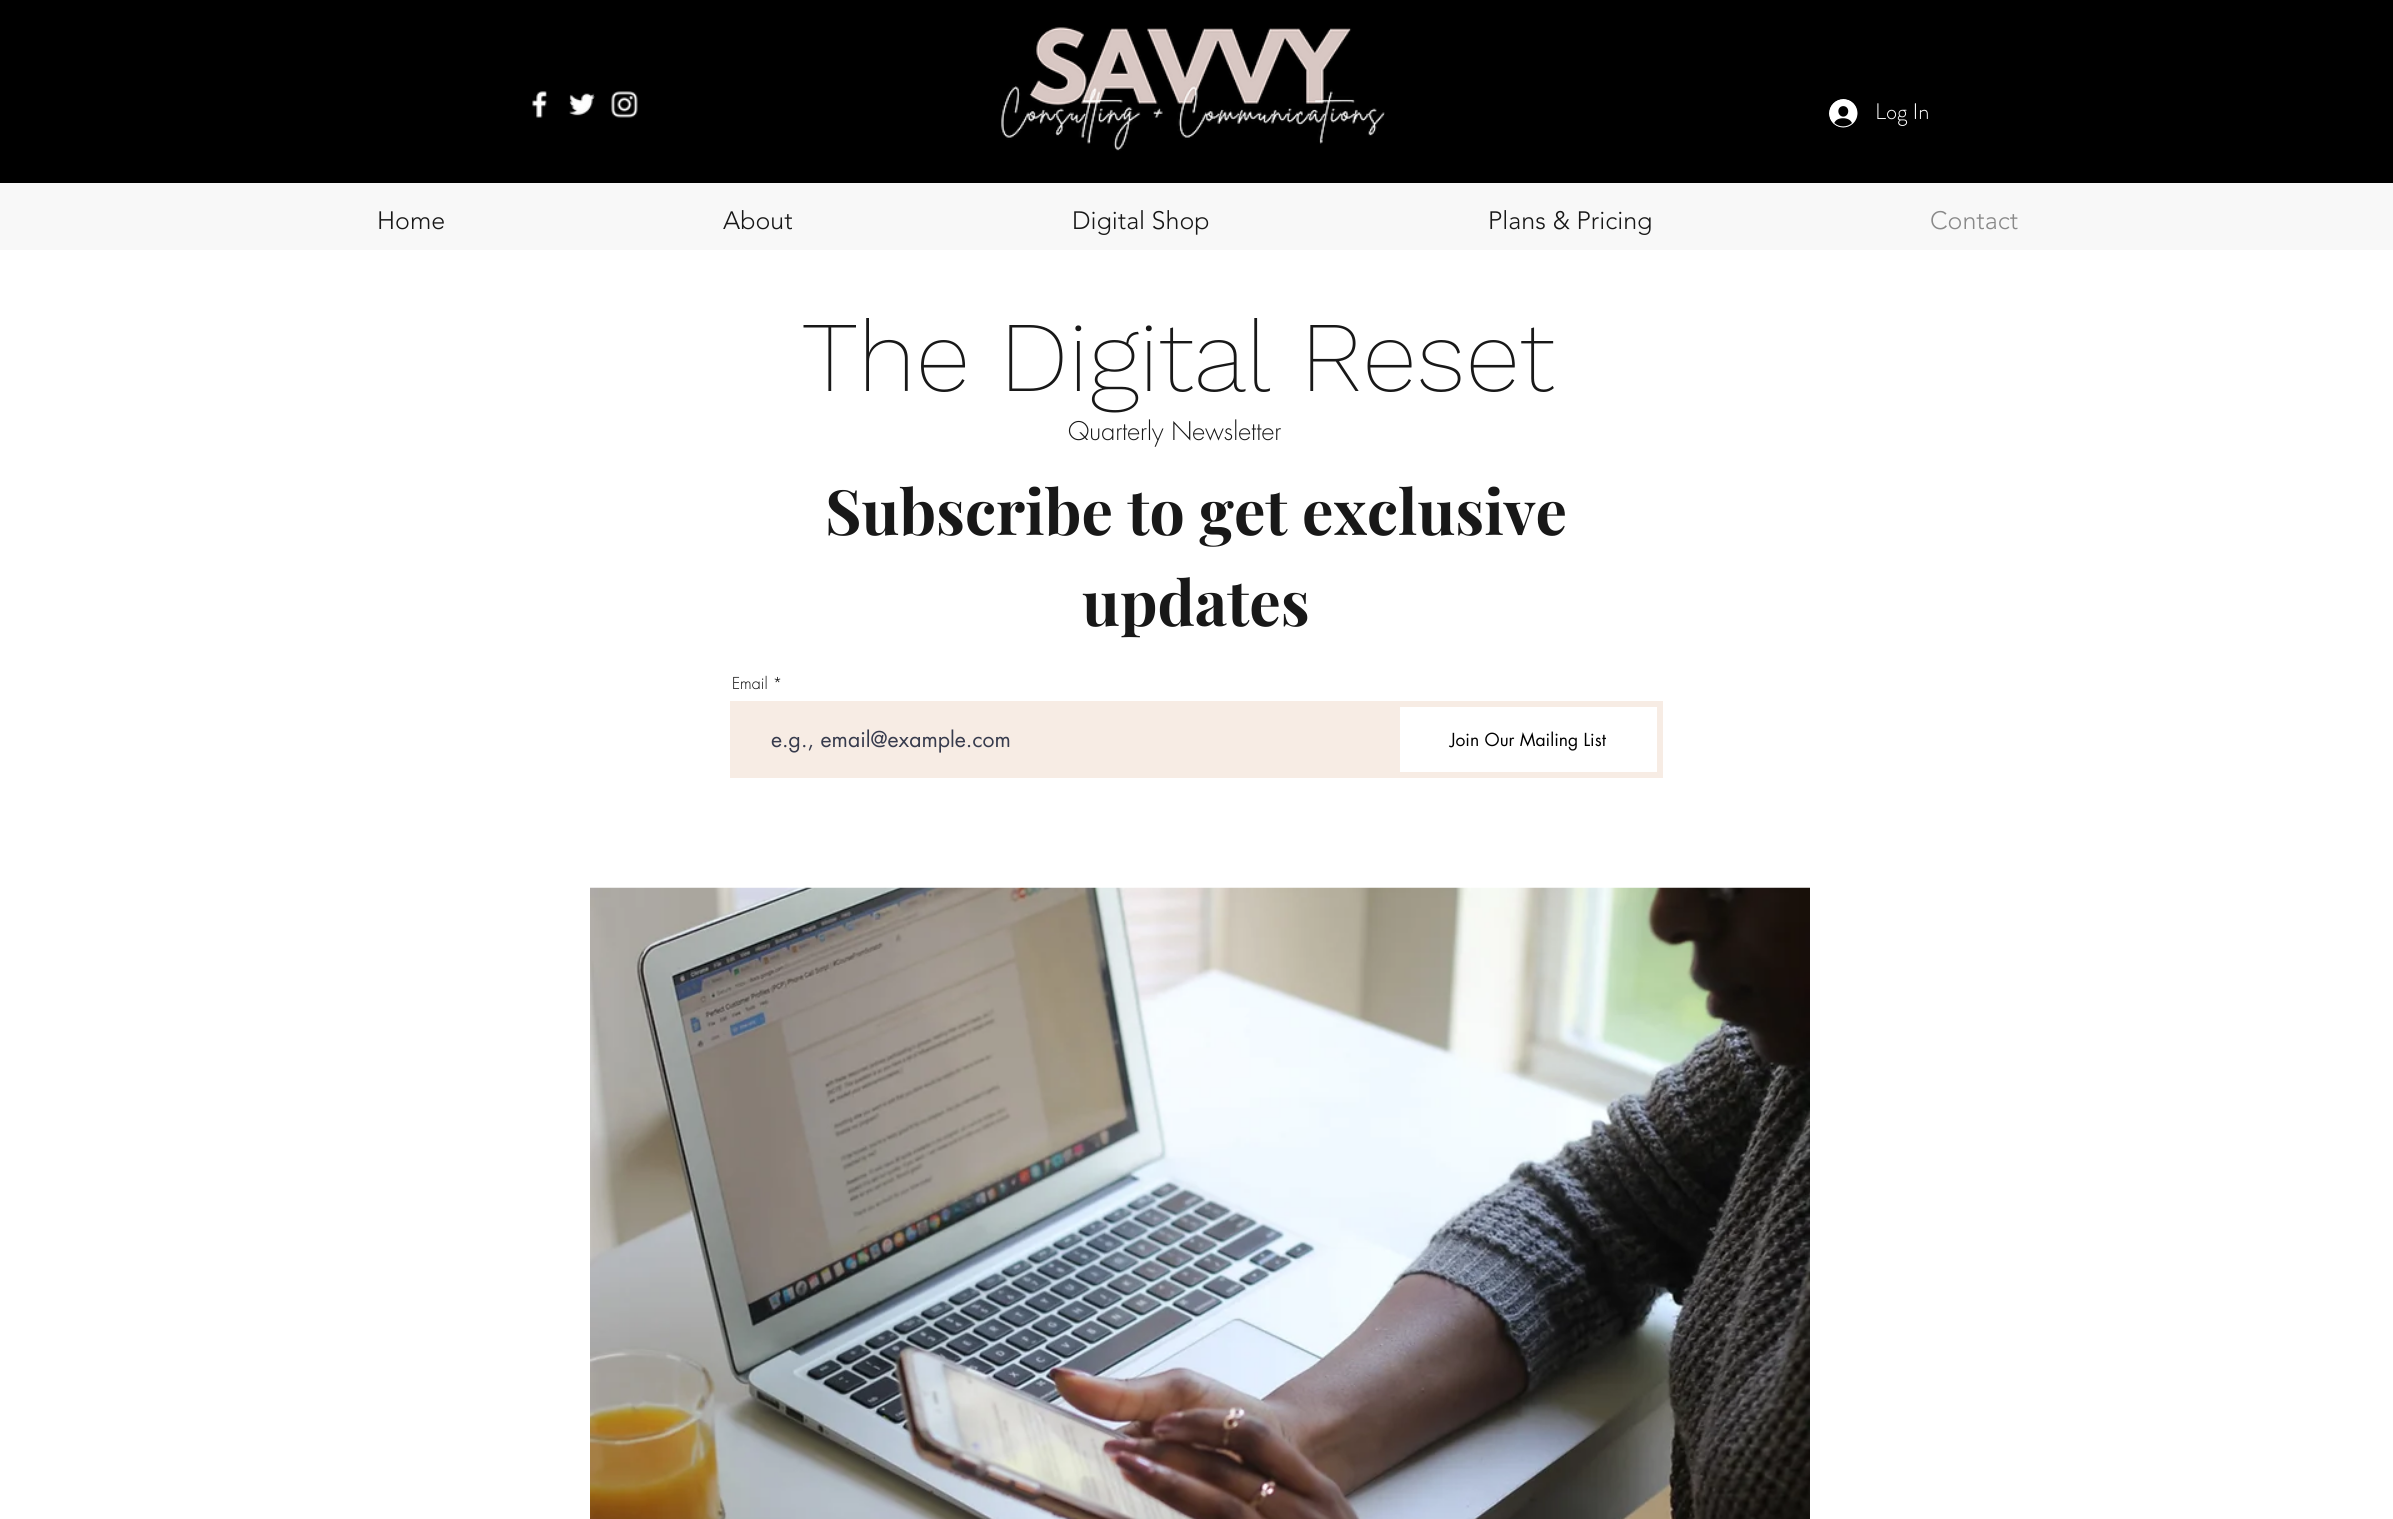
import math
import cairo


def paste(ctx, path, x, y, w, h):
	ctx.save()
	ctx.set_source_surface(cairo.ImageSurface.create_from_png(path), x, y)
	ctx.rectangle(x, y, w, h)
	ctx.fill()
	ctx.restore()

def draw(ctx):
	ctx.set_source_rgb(1, 1, 1)
	ctx.paint()
	ctx.set_source_rgb(0, 0, 0)
	ctx.rectangle(0, 0, 2393, 183)
	ctx.fill()
	paste(ctx, 'media/1.png', 532, 91, 15, 27)
	paste(ctx, 'media/2.png', 569, 93, 26, 23)
	paste(ctx, 'media/3.png', 611, 91, 27, 27)
	paste(ctx, 'media/4.png', 1000, 27, 385, 124)
	paste(ctx, 'media/5.png', 1829, 99, 29, 29)
	ctx.select_font_face('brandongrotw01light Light')
	ctx.set_font_size(22.5)
	ctx.set_source_rgb(1, 1, 1)
	ctx.move_to(1875, 119)
	ctx.show_text('Log In')
	ctx.set_source_rgb(0.969, 0.969, 0.969)
	ctx.rectangle(0, 183, 2393, 67)
	ctx.fill()
	ctx.select_font_face('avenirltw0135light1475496 Light')
	ctx.set_font_size(25)
	ctx.set_source_rgb(0.094, 0.094, 0.094)
	for x, y, s in [
		(377, 229, 'Home'),
		(723, 229, 'About'),
		(1072, 229, 'Digital Shop'),
		(1488, 229, 'Plans & Pricing'),
	]:
		ctx.move_to(x, y)
		ctx.show_text(s)
	ctx.set_source_rgb(0.537, 0.537, 0.537)
	ctx.move_to(1930, 229)
	ctx.show_text('Contact')
	ctx.select_font_face('Work Sans ExtraLight')
	ctx.set_font_size(100)
	ctx.set_source_rgb(0.094, 0.094, 0.094)
	ctx.move_to(802, 391)
	ctx.show_text('The Digital Reset')
	ctx.select_font_face('futura Light')
	ctx.set_font_size(25)
	ctx.move_to(1068, 440)
	ctx.show_text('Quarterly Newsletter')
	ctx.select_font_face('Playfair Display', cairo.FONT_SLANT_NORMAL, cairo.FONT_WEIGHT_BOLD)
	ctx.set_font_size(62.5)
	ctx.move_to(825, 535)
	ctx.show_text('Subscribe to get exclusive')
	ctx.move_to(1082, 626)
	ctx.show_text('updates')
	ctx.select_font_face('futura Light')
	ctx.set_font_size(16)
	ctx.set_source_rgb(0, 0, 0)
	ctx.move_to(732, 689)
	ctx.show_text('Email *')
	ctx.set_source_rgb(0.965, 0.922, 0.894)
	ctx.rectangle(730, 701, 664, 77)
	ctx.fill()
	ctx.select_font_face('futura')
	ctx.set_font_size(21.25)
	ctx.set_source_rgb(0.216, 0.231, 0.302)
	ctx.move_to(771, 747)
	ctx.show_text('e.g., email@example.com')
	ctx.rectangle(1397, 704, 263, 71)
	ctx.set_source_rgb(0.965, 0.922, 0.894)
	ctx.set_line_width(6)
	ctx.stroke()
	ctx.set_font_size(17.5)
	ctx.set_source_rgb(0, 0, 0)
	ctx.move_to(1450, 746)
	ctx.show_text('Join Our Mailing List')
	paste(ctx, 'media/6.png', 590, 887, 1220, 632)


surface = cairo.ImageSurface(cairo.FORMAT_RGB24, 2393, 1519)
ctx = cairo.Context(surface)
options = cairo.FontOptions()
options.set_hint_metrics(cairo.HINT_METRICS_OFF)
options.set_hint_style(cairo.HINT_STYLE_NONE)
ctx.set_font_options(options)
ctx.set_miter_limit(4)
draw(ctx)
surface.write_to_png('image.png')
